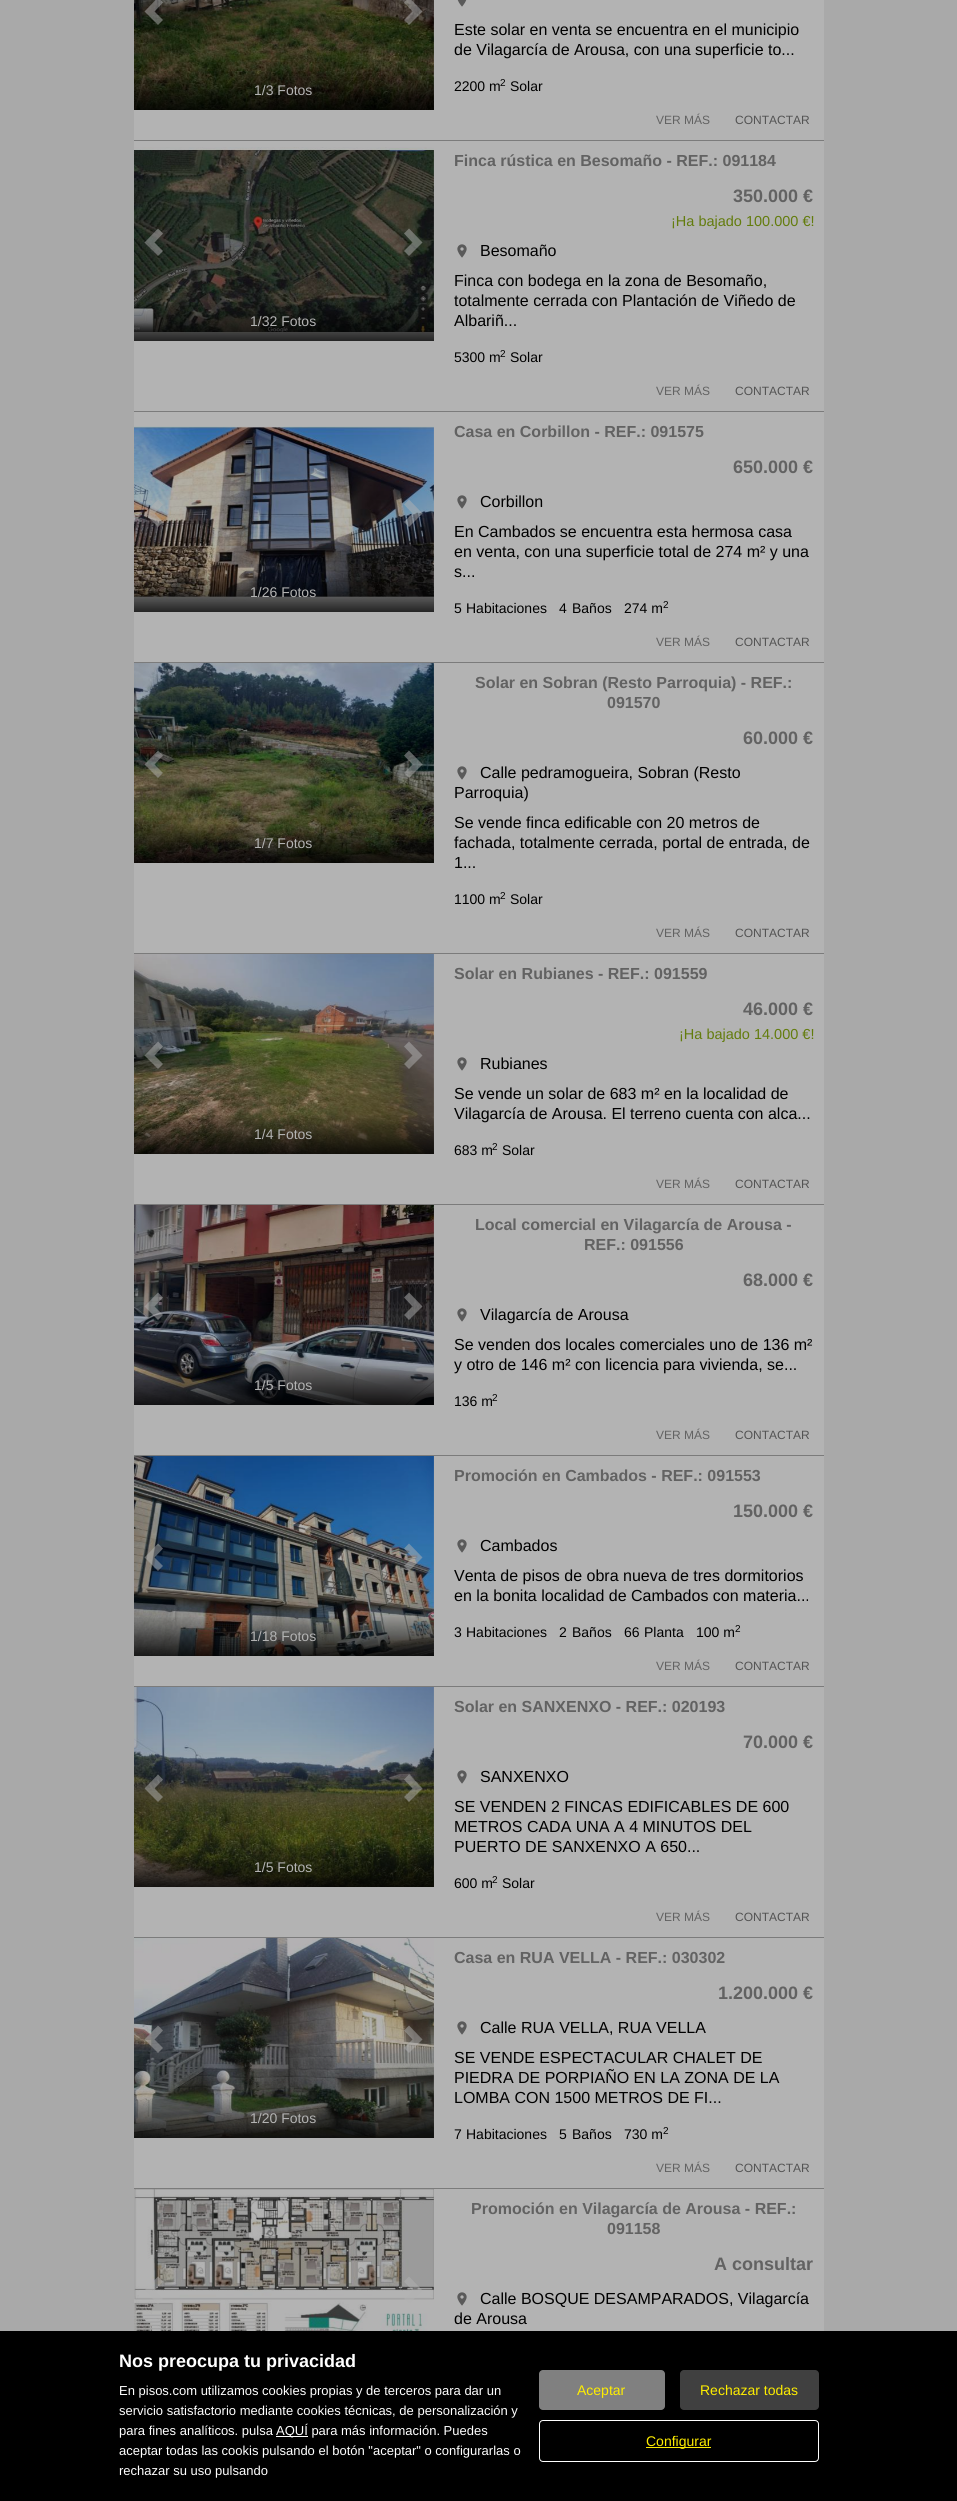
import math
import cairo


def round_path(ctx, x, y, w, h, r):
	ctx.new_sub_path()
	for i, (u, v) in enumerate([(x + w - r, y + h - r), (x + r, y + h - r), (x + r, y + r), (x + w - r, y + r)]):
		ctx.arc(u, v, r, i * math.pi / 2, (i + 1) * math.pi / 2)
	ctx.close_path()

def paste(ctx, path, x, y, w, h):
	ctx.save()
	ctx.set_source_surface(cairo.ImageSurface.create_from_png(path), x, y)
	ctx.rectangle(x, y, w, h)
	ctx.fill()
	ctx.restore()

def draw(ctx):
	ctx.set_source_rgb(0.663, 0.663, 0.663)
	ctx.paint()
	ctx.set_source_rgb(0.702, 0.702, 0.702)
	ctx.rectangle(134, 0, 690, 140)
	ctx.fill()
	ctx.set_source_rgb(0.482, 0.482, 0.482)
	ctx.rectangle(134, 140, 690, 1)
	ctx.fill()
	paste(ctx, 'media/1.png', 134, 0, 300, 110)
	ctx.set_source_rgba(0.702, 0.702, 0.702, 0.5)
	ctx.new_path()
	ctx.move_to(163, 2.5)
	ctx.line_to(154.5, 11.5)
	ctx.line_to(163, 20)
	ctx.line_to(158, 25)
	ctx.line_to(144.5, 11.5)
	ctx.line_to(158, -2.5)
	ctx.close_path()
	ctx.fill()
	ctx.new_path()
	ctx.move_to(422.5, 11.5)
	ctx.line_to(409, 25)
	ctx.line_to(404, 20)
	ctx.line_to(412.5, 11.5)
	ctx.line_to(404, 2.5)
	ctx.line_to(409, -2.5)
	ctx.close_path()
	ctx.fill()
	gradient = cairo.LinearGradient(284, 70, 284, 110)
	gradient.add_color_stop_rgba(0, 0, 0, 0, 0)
	gradient.add_color_stop_rgba(1, 0, 0, 0, 0.8)
	ctx.set_source(gradient)
	ctx.rectangle(134, 71, 300, 39)
	ctx.fill()
	ctx.select_font_face('Liberation Sans')
	ctx.set_font_size(14)
	ctx.set_source_rgb(0.702, 0.702, 0.702)
	ctx.move_to(254, 95)
	ctx.show_text('1/3 Fotos')
	paste(ctx, 'media/2.png', 457, 0, 10, 7)
	ctx.set_font_size(16)
	ctx.set_source_rgb(0, 0, 0)
	ctx.move_to(454, 35)
	ctx.show_text('Este solar en venta se encuentra en el municipio')
	ctx.move_to(454, 55)
	ctx.show_text('de Vilagarcía de Arousa, con una superficie to...')
	ctx.set_font_size(14)
	ctx.move_to(454, 91)
	ctx.show_text('2200 m')
	ctx.set_font_size(10)
	ctx.move_to(500, 86)
	ctx.show_text('2')
	ctx.set_font_size(14)
	ctx.move_to(510, 91)
	ctx.show_text('Solar')
	ctx.set_font_size(12)
	ctx.set_source_rgb(0.384, 0.384, 0.384)
	ctx.move_to(656, 124)
	ctx.show_text('VER MÁS')
	ctx.set_source_rgb(0.325, 0.325, 0.325)
	ctx.move_to(735, 124)
	ctx.show_text('CONTACTAR')
	ctx.set_source_rgb(0.702, 0.702, 0.702)
	ctx.rectangle(134, 141, 690, 270)
	ctx.fill()
	ctx.set_source_rgb(0.482, 0.482, 0.482)
	ctx.rectangle(134, 411, 690, 1)
	ctx.fill()
	paste(ctx, 'media/3.png', 134, 147, 300, 192)
	ctx.set_source_rgba(0.702, 0.702, 0.702, 0.5)
	ctx.new_path()
	ctx.move_to(163, 233.5)
	ctx.line_to(154.5, 242.5)
	ctx.line_to(163, 251)
	ctx.line_to(158, 256)
	ctx.line_to(144.5, 242.5)
	ctx.line_to(158, 228.5)
	ctx.close_path()
	ctx.fill()
	ctx.new_path()
	ctx.move_to(422.5, 242.5)
	ctx.line_to(409, 256)
	ctx.line_to(404, 251)
	ctx.line_to(412.5, 242.5)
	ctx.line_to(404, 233.5)
	ctx.line_to(409, 228.5)
	ctx.close_path()
	ctx.fill()
	gradient = cairo.LinearGradient(284, 301, 284, 341)
	gradient.add_color_stop_rgba(0, 0, 0, 0, 0)
	gradient.add_color_stop_rgba(1, 0, 0, 0, 0.8)
	ctx.set_source(gradient)
	ctx.rectangle(134, 303, 300, 38)
	ctx.fill()
	ctx.set_font_size(14)
	ctx.set_source_rgb(0.702, 0.702, 0.702)
	ctx.move_to(250, 326)
	ctx.show_text('1/32 Fotos')
	ctx.select_font_face('Liberation Sans', cairo.FONT_SLANT_NORMAL, cairo.FONT_WEIGHT_BOLD)
	ctx.set_font_size(16)
	ctx.set_source_rgb(0.384, 0.384, 0.384)
	ctx.move_to(454, 166)
	ctx.show_text('Finca rústica en Besomaño - REF.: 091184')
	ctx.set_font_size(18)
	ctx.move_to(733, 202)
	ctx.show_text('350.000 €')
	ctx.select_font_face('Liberation Sans')
	ctx.set_font_size(14.5)
	ctx.set_source_rgb(0.388, 0.486, 0.051)
	ctx.move_to(671, 226)
	ctx.show_text('¡Ha bajado 100.000 €!')
	paste(ctx, 'media/4.png', 457, 244, 10, 14)
	ctx.set_font_size(16)
	ctx.set_source_rgb(0, 0, 0)
	for x, y, s in [
		(480, 256, 'Besomaño'),
		(454, 286, 'Finca con bodega en la zona de Besomaño,'),
		(454, 306, 'totalmente cerrada con Plantación de Viñedo de'),
		(454, 326, 'Albariñ...'),
	]:
		ctx.move_to(x, y)
		ctx.show_text(s)
	ctx.set_font_size(14)
	ctx.move_to(454, 362)
	ctx.show_text('5300 m')
	ctx.set_font_size(10)
	ctx.move_to(500, 357)
	ctx.show_text('2')
	ctx.set_font_size(14)
	ctx.move_to(510, 362)
	ctx.show_text('Solar')
	ctx.set_font_size(12)
	ctx.set_source_rgb(0.384, 0.384, 0.384)
	ctx.move_to(656, 395)
	ctx.show_text('VER MÁS')
	ctx.set_source_rgb(0.325, 0.325, 0.325)
	ctx.move_to(735, 395)
	ctx.show_text('CONTACTAR')
	ctx.set_source_rgb(0.702, 0.702, 0.702)
	ctx.rectangle(134, 412, 690, 250)
	ctx.fill()
	ctx.set_source_rgb(0.482, 0.482, 0.482)
	ctx.rectangle(134, 662, 690, 1)
	ctx.fill()
	paste(ctx, 'media/5.png', 134, 426, 300, 175)
	ctx.set_source_rgba(0.702, 0.702, 0.702, 0.5)
	ctx.new_path()
	ctx.move_to(163, 504.5)
	ctx.line_to(154.5, 513.5)
	ctx.line_to(163, 522)
	ctx.line_to(158, 527)
	ctx.line_to(144.5, 513.5)
	ctx.line_to(158, 499.5)
	ctx.close_path()
	ctx.fill()
	ctx.new_path()
	ctx.move_to(422.5, 513.5)
	ctx.line_to(409, 527)
	ctx.line_to(404, 522)
	ctx.line_to(412.5, 513.5)
	ctx.line_to(404, 504.5)
	ctx.line_to(409, 499.5)
	ctx.close_path()
	ctx.fill()
	gradient = cairo.LinearGradient(284, 572, 284, 612)
	gradient.add_color_stop_rgba(0, 0, 0, 0, 0)
	gradient.add_color_stop_rgba(1, 0, 0, 0, 0.8)
	ctx.set_source(gradient)
	ctx.rectangle(134, 573, 300, 39)
	ctx.fill()
	ctx.set_font_size(14)
	ctx.set_source_rgb(0.702, 0.702, 0.702)
	ctx.move_to(250, 597)
	ctx.show_text('1/26 Fotos')
	ctx.select_font_face('Liberation Sans', cairo.FONT_SLANT_NORMAL, cairo.FONT_WEIGHT_BOLD)
	ctx.set_font_size(16)
	ctx.set_source_rgb(0.384, 0.384, 0.384)
	ctx.move_to(454, 437)
	ctx.show_text('Casa en Corbillon - REF.: 091575')
	ctx.set_font_size(18)
	ctx.move_to(733, 473)
	ctx.show_text('650.000 €')
	paste(ctx, 'media/4.png', 457, 495, 10, 14)
	ctx.select_font_face('Liberation Sans')
	ctx.set_font_size(16)
	ctx.set_source_rgb(0, 0, 0)
	for x, y, s in [
		(480, 507, 'Corbillon'),
		(454, 537, 'En Cambados se encuentra esta hermosa casa'),
		(454, 557, 'en venta, con una superficie total de 274 m² y una'),
		(454, 577, 's...'),
	]:
		ctx.move_to(x, y)
		ctx.show_text(s)
	ctx.set_font_size(14)
	for x, y, s in [
		(454, 613, '5'),
		(466, 613, 'Habitaciones'),
		(559, 613, '4'),
		(572, 613, 'Baños'),
		(624, 613, '274 m'),
	]:
		ctx.move_to(x, y)
		ctx.show_text(s)
	ctx.set_font_size(10)
	ctx.move_to(663, 608)
	ctx.show_text('2')
	ctx.set_font_size(12)
	ctx.set_source_rgb(0.384, 0.384, 0.384)
	ctx.move_to(656, 646)
	ctx.show_text('VER MÁS')
	ctx.set_source_rgb(0.325, 0.325, 0.325)
	ctx.move_to(735, 646)
	ctx.show_text('CONTACTAR')
	ctx.set_source_rgb(0.702, 0.702, 0.702)
	ctx.rectangle(134, 663, 690, 290)
	ctx.fill()
	ctx.set_source_rgb(0.482, 0.482, 0.482)
	ctx.rectangle(134, 953, 690, 1)
	ctx.fill()
	paste(ctx, 'media/6.png', 134, 663, 300, 200)
	ctx.set_source_rgba(0.702, 0.702, 0.702, 0.5)
	ctx.new_path()
	ctx.move_to(163, 755.5)
	ctx.line_to(154.5, 764.5)
	ctx.line_to(163, 773)
	ctx.line_to(158, 778)
	ctx.line_to(144.5, 764.5)
	ctx.line_to(158, 750.5)
	ctx.close_path()
	ctx.fill()
	ctx.new_path()
	ctx.move_to(422.5, 764.5)
	ctx.line_to(409, 778)
	ctx.line_to(404, 773)
	ctx.line_to(412.5, 764.5)
	ctx.line_to(404, 755.5)
	ctx.line_to(409, 750.5)
	ctx.close_path()
	ctx.fill()
	gradient = cairo.LinearGradient(284, 823, 284, 863)
	gradient.add_color_stop_rgba(0, 0, 0, 0, 0)
	gradient.add_color_stop_rgba(1, 0, 0, 0, 0.8)
	ctx.set_source(gradient)
	ctx.rectangle(134, 824, 300, 39)
	ctx.fill()
	ctx.set_font_size(14)
	ctx.set_source_rgb(0.702, 0.702, 0.702)
	ctx.move_to(254, 848)
	ctx.show_text('1/7 Fotos')
	ctx.select_font_face('Liberation Sans', cairo.FONT_SLANT_NORMAL, cairo.FONT_WEIGHT_BOLD)
	ctx.set_font_size(16)
	ctx.set_source_rgb(0.384, 0.384, 0.384)
	ctx.move_to(475, 688)
	ctx.show_text('Solar en Sobran (Resto Parroquia) - REF.:')
	ctx.move_to(607, 708)
	ctx.show_text('091570')
	ctx.set_font_size(18)
	ctx.move_to(743, 744)
	ctx.show_text('60.000 €')
	ctx.select_font_face('Liberation Sans')
	ctx.set_font_size(16)
	ctx.set_source_rgb(0, 0, 0)
	ctx.move_to(480, 778)
	ctx.show_text('Calle pedramogueira, Sobran (Resto')
	ctx.move_to(454, 798)
	ctx.show_text('Parroquia)')
	paste(ctx, 'media/4.png', 457, 766, 10, 14)
	for x, y, s in [
		(454, 828, 'Se vende finca edificable con 20 metros de'),
		(454, 848, 'fachada, totalmente cerrada, portal de entrada, de'),
		(454, 868, '1...'),
	]:
		ctx.move_to(x, y)
		ctx.show_text(s)
	ctx.set_font_size(14)
	ctx.move_to(454, 904)
	ctx.show_text('1100 m')
	ctx.set_font_size(10)
	ctx.move_to(500, 899)
	ctx.show_text('2')
	ctx.set_font_size(14)
	ctx.move_to(510, 904)
	ctx.show_text('Solar')
	ctx.set_font_size(12)
	ctx.set_source_rgb(0.384, 0.384, 0.384)
	ctx.move_to(656, 937)
	ctx.show_text('VER MÁS')
	ctx.set_source_rgb(0.325, 0.325, 0.325)
	ctx.move_to(735, 937)
	ctx.show_text('CONTACTAR')
	ctx.set_source_rgb(0.702, 0.702, 0.702)
	ctx.rectangle(134, 954, 690, 250)
	ctx.fill()
	ctx.set_source_rgb(0.482, 0.482, 0.482)
	ctx.rectangle(134, 1204, 690, 1)
	ctx.fill()
	paste(ctx, 'media/7.png', 134, 954, 300, 200)
	ctx.set_source_rgba(0.702, 0.702, 0.702, 0.5)
	ctx.new_path()
	ctx.move_to(163, 1046.5)
	ctx.line_to(154.5, 1055.5)
	ctx.line_to(163, 1064)
	ctx.line_to(158, 1069)
	ctx.line_to(144.5, 1055.5)
	ctx.line_to(158, 1041.5)
	ctx.close_path()
	ctx.fill()
	ctx.new_path()
	ctx.move_to(422.5, 1055.5)
	ctx.line_to(409, 1069)
	ctx.line_to(404, 1064)
	ctx.line_to(412.5, 1055.5)
	ctx.line_to(404, 1046.5)
	ctx.line_to(409, 1041.5)
	ctx.close_path()
	ctx.fill()
	gradient = cairo.LinearGradient(284, 1114, 284, 1154)
	gradient.add_color_stop_rgba(0, 0, 0, 0, 0)
	gradient.add_color_stop_rgba(1, 0, 0, 0, 0.8)
	ctx.set_source(gradient)
	ctx.rectangle(134, 1115, 300, 39)
	ctx.fill()
	ctx.set_font_size(14)
	ctx.set_source_rgb(0.702, 0.702, 0.702)
	ctx.move_to(254, 1139)
	ctx.show_text('1/4 Fotos')
	ctx.select_font_face('Liberation Sans', cairo.FONT_SLANT_NORMAL, cairo.FONT_WEIGHT_BOLD)
	ctx.set_font_size(16)
	ctx.set_source_rgb(0.384, 0.384, 0.384)
	ctx.move_to(454, 979)
	ctx.show_text('Solar en Rubianes - REF.: 091559')
	ctx.set_font_size(18)
	ctx.move_to(743, 1015)
	ctx.show_text('46.000 €')
	ctx.select_font_face('Liberation Sans')
	ctx.set_font_size(14.5)
	ctx.set_source_rgb(0.388, 0.486, 0.051)
	ctx.move_to(679, 1039)
	ctx.show_text('¡Ha bajado 14.000 €!')
	paste(ctx, 'media/4.png', 457, 1057, 10, 14)
	ctx.set_font_size(16)
	ctx.set_source_rgb(0, 0, 0)
	for x, y, s in [
		(480, 1069, 'Rubianes'),
		(454, 1099, 'Se vende un solar de 683 m² en la localidad de'),
		(454, 1119, 'Vilagarcía de Arousa. El terreno cuenta con alca...'),
	]:
		ctx.move_to(x, y)
		ctx.show_text(s)
	ctx.set_font_size(14)
	ctx.move_to(454, 1155)
	ctx.show_text('683 m')
	ctx.set_font_size(10)
	ctx.move_to(492, 1150)
	ctx.show_text('2')
	ctx.set_font_size(14)
	ctx.move_to(502, 1155)
	ctx.show_text('Solar')
	ctx.set_font_size(12)
	ctx.set_source_rgb(0.384, 0.384, 0.384)
	ctx.move_to(656, 1188)
	ctx.show_text('VER MÁS')
	ctx.set_source_rgb(0.325, 0.325, 0.325)
	ctx.move_to(735, 1188)
	ctx.show_text('CONTACTAR')
	ctx.set_source_rgb(0.702, 0.702, 0.702)
	ctx.rectangle(134, 1205, 690, 250)
	ctx.fill()
	ctx.set_source_rgb(0.482, 0.482, 0.482)
	ctx.rectangle(134, 1455, 690, 1)
	ctx.fill()
	paste(ctx, 'media/8.png', 134, 1205, 300, 200)
	ctx.set_source_rgba(0.702, 0.702, 0.702, 0.5)
	ctx.new_path()
	ctx.move_to(163, 1297.5)
	ctx.line_to(154.5, 1306.5)
	ctx.line_to(163, 1315)
	ctx.line_to(158, 1320)
	ctx.line_to(144.5, 1306.5)
	ctx.line_to(158, 1292.5)
	ctx.close_path()
	ctx.fill()
	ctx.new_path()
	ctx.move_to(422.5, 1306.5)
	ctx.line_to(409, 1320)
	ctx.line_to(404, 1315)
	ctx.line_to(412.5, 1306.5)
	ctx.line_to(404, 1297.5)
	ctx.line_to(409, 1292.5)
	ctx.close_path()
	ctx.fill()
	gradient = cairo.LinearGradient(284, 1365, 284, 1405)
	gradient.add_color_stop_rgba(0, 0, 0, 0, 0)
	gradient.add_color_stop_rgba(1, 0, 0, 0, 0.8)
	ctx.set_source(gradient)
	ctx.rectangle(134, 1366, 300, 39)
	ctx.fill()
	ctx.set_font_size(14)
	ctx.set_source_rgb(0.702, 0.702, 0.702)
	ctx.move_to(254, 1390)
	ctx.show_text('1/5 Fotos')
	ctx.select_font_face('Liberation Sans', cairo.FONT_SLANT_NORMAL, cairo.FONT_WEIGHT_BOLD)
	ctx.set_font_size(16)
	ctx.set_source_rgb(0.384, 0.384, 0.384)
	ctx.move_to(475, 1230)
	ctx.show_text('Local comercial en Vilagarcía de Arousa -')
	ctx.move_to(584, 1250)
	ctx.show_text('REF.: 091556')
	ctx.set_font_size(18)
	ctx.move_to(743, 1286)
	ctx.show_text('68.000 €')
	paste(ctx, 'media/4.png', 457, 1308, 10, 14)
	ctx.select_font_face('Liberation Sans')
	ctx.set_font_size(16)
	ctx.set_source_rgb(0, 0, 0)
	for x, y, s in [
		(480, 1320, 'Vilagarcía de Arousa'),
		(454, 1350, 'Se venden dos locales comerciales uno de 136 m²'),
		(454, 1370, 'y otro de 146 m² con licencia para vivienda, se...'),
	]:
		ctx.move_to(x, y)
		ctx.show_text(s)
	ctx.set_font_size(14)
	ctx.move_to(454, 1406)
	ctx.show_text('136 m')
	ctx.set_font_size(10)
	ctx.move_to(492, 1401)
	ctx.show_text('2')
	ctx.set_font_size(12)
	ctx.set_source_rgb(0.384, 0.384, 0.384)
	ctx.move_to(656, 1439)
	ctx.show_text('VER MÁS')
	ctx.set_source_rgb(0.325, 0.325, 0.325)
	ctx.move_to(735, 1439)
	ctx.show_text('CONTACTAR')
	ctx.set_source_rgb(0.702, 0.702, 0.702)
	ctx.rectangle(134, 1456, 690, 230)
	ctx.fill()
	ctx.set_source_rgb(0.482, 0.482, 0.482)
	ctx.rectangle(134, 1686, 690, 1)
	ctx.fill()
	paste(ctx, 'media/9.png', 134, 1456, 300, 200)
	ctx.set_source_rgba(0.702, 0.702, 0.702, 0.5)
	ctx.new_path()
	ctx.move_to(163, 1548.5)
	ctx.line_to(154.5, 1557.5)
	ctx.line_to(163, 1566)
	ctx.line_to(158, 1571)
	ctx.line_to(144.5, 1557.5)
	ctx.line_to(158, 1543.5)
	ctx.close_path()
	ctx.fill()
	ctx.new_path()
	ctx.move_to(422.5, 1557.5)
	ctx.line_to(409, 1571)
	ctx.line_to(404, 1566)
	ctx.line_to(412.5, 1557.5)
	ctx.line_to(404, 1548.5)
	ctx.line_to(409, 1543.5)
	ctx.close_path()
	ctx.fill()
	gradient = cairo.LinearGradient(284, 1616, 284, 1656)
	gradient.add_color_stop_rgba(0, 0, 0, 0, 0)
	gradient.add_color_stop_rgba(1, 0, 0, 0, 0.8)
	ctx.set_source(gradient)
	ctx.rectangle(134, 1617, 300, 39)
	ctx.fill()
	ctx.set_font_size(14)
	ctx.set_source_rgb(0.702, 0.702, 0.702)
	ctx.move_to(250, 1641)
	ctx.show_text('1/18 Fotos')
	ctx.select_font_face('Liberation Sans', cairo.FONT_SLANT_NORMAL, cairo.FONT_WEIGHT_BOLD)
	ctx.set_font_size(16)
	ctx.set_source_rgb(0.384, 0.384, 0.384)
	ctx.move_to(454, 1481)
	ctx.show_text('Promoción en Cambados - REF.: 091553')
	ctx.set_font_size(18)
	ctx.move_to(733, 1517)
	ctx.show_text('150.000 €')
	paste(ctx, 'media/4.png', 457, 1539, 10, 14)
	ctx.select_font_face('Liberation Sans')
	ctx.set_font_size(16)
	ctx.set_source_rgb(0, 0, 0)
	for x, y, s in [
		(480, 1551, 'Cambados'),
		(454, 1581, 'Venta de pisos de obra nueva de tres dormitorios'),
		(454, 1601, 'en la bonita localidad de Cambados con materia...'),
	]:
		ctx.move_to(x, y)
		ctx.show_text(s)
	ctx.set_font_size(14)
	for x, y, s in [
		(454, 1637, '3'),
		(466, 1637, 'Habitaciones'),
		(559, 1637, '2'),
		(572, 1637, 'Baños'),
		(624, 1637, '66'),
		(644, 1637, 'Planta'),
		(696, 1637, '100 m'),
	]:
		ctx.move_to(x, y)
		ctx.show_text(s)
	ctx.set_font_size(10)
	ctx.move_to(735, 1632)
	ctx.show_text('2')
	ctx.set_font_size(12)
	ctx.set_source_rgb(0.384, 0.384, 0.384)
	ctx.move_to(656, 1670)
	ctx.show_text('VER MÁS')
	ctx.set_source_rgb(0.325, 0.325, 0.325)
	ctx.move_to(735, 1670)
	ctx.show_text('CONTACTAR')
	ctx.set_source_rgb(0.702, 0.702, 0.702)
	ctx.rectangle(134, 1687, 690, 250)
	ctx.fill()
	ctx.set_source_rgb(0.482, 0.482, 0.482)
	ctx.rectangle(134, 1937, 690, 1)
	ctx.fill()
	paste(ctx, 'media/10.png', 134, 1687, 300, 200)
	ctx.set_source_rgba(0.702, 0.702, 0.702, 0.5)
	ctx.new_path()
	ctx.move_to(163, 1779.5)
	ctx.line_to(154.5, 1788.5)
	ctx.line_to(163, 1797)
	ctx.line_to(158, 1802)
	ctx.line_to(144.5, 1788.5)
	ctx.line_to(158, 1774.5)
	ctx.close_path()
	ctx.fill()
	ctx.new_path()
	ctx.move_to(422.5, 1788.5)
	ctx.line_to(409, 1802)
	ctx.line_to(404, 1797)
	ctx.line_to(412.5, 1788.5)
	ctx.line_to(404, 1779.5)
	ctx.line_to(409, 1774.5)
	ctx.close_path()
	ctx.fill()
	gradient = cairo.LinearGradient(284, 1847, 284, 1887)
	gradient.add_color_stop_rgba(0, 0, 0, 0, 0)
	gradient.add_color_stop_rgba(1, 0, 0, 0, 0.8)
	ctx.set_source(gradient)
	ctx.rectangle(134, 1848, 300, 39)
	ctx.fill()
	ctx.set_font_size(14)
	ctx.set_source_rgb(0.702, 0.702, 0.702)
	ctx.move_to(254, 1872)
	ctx.show_text('1/5 Fotos')
	ctx.select_font_face('Liberation Sans', cairo.FONT_SLANT_NORMAL, cairo.FONT_WEIGHT_BOLD)
	ctx.set_font_size(16)
	ctx.set_source_rgb(0.384, 0.384, 0.384)
	ctx.move_to(454, 1712)
	ctx.show_text('Solar en SANXENXO - REF.: 020193')
	ctx.set_font_size(18)
	ctx.move_to(743, 1748)
	ctx.show_text('70.000 €')
	paste(ctx, 'media/4.png', 457, 1770, 10, 14)
	ctx.select_font_face('Liberation Sans')
	ctx.set_font_size(16)
	ctx.set_source_rgb(0, 0, 0)
	for x, y, s in [
		(480, 1782, 'SANXENXO'),
		(454, 1812, 'SE VENDEN 2 FINCAS EDIFICABLES DE 600'),
		(454, 1832, 'METROS CADA UNA A 4 MINUTOS DEL'),
		(454, 1852, 'PUERTO DE SANXENXO A 650...'),
	]:
		ctx.move_to(x, y)
		ctx.show_text(s)
	ctx.set_font_size(14)
	ctx.move_to(454, 1888)
	ctx.show_text('600 m')
	ctx.set_font_size(10)
	ctx.move_to(492, 1883)
	ctx.show_text('2')
	ctx.set_font_size(14)
	ctx.move_to(502, 1888)
	ctx.show_text('Solar')
	ctx.set_font_size(12)
	ctx.set_source_rgb(0.384, 0.384, 0.384)
	ctx.move_to(656, 1921)
	ctx.show_text('VER MÁS')
	ctx.set_source_rgb(0.325, 0.325, 0.325)
	ctx.move_to(735, 1921)
	ctx.show_text('CONTACTAR')
	ctx.set_source_rgb(0.702, 0.702, 0.702)
	ctx.rectangle(134, 1938, 690, 250)
	ctx.fill()
	ctx.set_source_rgb(0.482, 0.482, 0.482)
	ctx.rectangle(134, 2188, 690, 1)
	ctx.fill()
	paste(ctx, 'media/11.png', 134, 1938, 300, 200)
	ctx.set_source_rgba(0.702, 0.702, 0.702, 0.5)
	ctx.new_path()
	ctx.move_to(163, 2030.5)
	ctx.line_to(154.5, 2039.5)
	ctx.line_to(163, 2048)
	ctx.line_to(158, 2053)
	ctx.line_to(144.5, 2039.5)
	ctx.line_to(158, 2025.5)
	ctx.close_path()
	ctx.fill()
	ctx.new_path()
	ctx.move_to(422.5, 2039.5)
	ctx.line_to(409, 2053)
	ctx.line_to(404, 2048)
	ctx.line_to(412.5, 2039.5)
	ctx.line_to(404, 2030.5)
	ctx.line_to(409, 2025.5)
	ctx.close_path()
	ctx.fill()
	gradient = cairo.LinearGradient(284, 2098, 284, 2138)
	gradient.add_color_stop_rgba(0, 0, 0, 0, 0)
	gradient.add_color_stop_rgba(1, 0, 0, 0, 0.8)
	ctx.set_source(gradient)
	ctx.rectangle(134, 2099, 300, 39)
	ctx.fill()
	ctx.set_font_size(14)
	ctx.set_source_rgb(0.702, 0.702, 0.702)
	ctx.move_to(250, 2123)
	ctx.show_text('1/20 Fotos')
	ctx.select_font_face('Liberation Sans', cairo.FONT_SLANT_NORMAL, cairo.FONT_WEIGHT_BOLD)
	ctx.set_font_size(16)
	ctx.set_source_rgb(0.384, 0.384, 0.384)
	ctx.move_to(454, 1963)
	ctx.show_text('Casa en RUA VELLA - REF.: 030302')
	ctx.set_font_size(18)
	ctx.move_to(718, 1999)
	ctx.show_text('1.200.000 €')
	paste(ctx, 'media/4.png', 457, 2021, 10, 14)
	ctx.select_font_face('Liberation Sans')
	ctx.set_font_size(16)
	ctx.set_source_rgb(0, 0, 0)
	for x, y, s in [
		(480, 2033, 'Calle RUA VELLA, RUA VELLA'),
		(454, 2063, 'SE VENDE ESPECTACULAR CHALET DE'),
		(454, 2083, 'PIEDRA DE PORPIAÑO EN LA ZONA DE LA'),
		(454, 2103, 'LOMBA CON 1500 METROS DE FI...'),
	]:
		ctx.move_to(x, y)
		ctx.show_text(s)
	ctx.set_font_size(14)
	for x, y, s in [
		(454, 2139, '7'),
		(466, 2139, 'Habitaciones'),
		(559, 2139, '5'),
		(572, 2139, 'Baños'),
		(624, 2139, '730 m'),
	]:
		ctx.move_to(x, y)
		ctx.show_text(s)
	ctx.set_font_size(10)
	ctx.move_to(663, 2134)
	ctx.show_text('2')
	ctx.set_font_size(12)
	ctx.set_source_rgb(0.384, 0.384, 0.384)
	ctx.move_to(656, 2172)
	ctx.show_text('VER MÁS')
	ctx.set_source_rgb(0.325, 0.325, 0.325)
	ctx.move_to(735, 2172)
	ctx.show_text('CONTACTAR')
	ctx.set_source_rgb(0.702, 0.702, 0.702)
	ctx.rectangle(433, 2189, 391, 142)
	ctx.fill()
	paste(ctx, 'media/12.png', 134, 2189, 300, 142)
	ctx.set_source_rgba(0.702, 0.702, 0.702, 0.5)
	ctx.new_path()
	ctx.move_to(163, 2281.5)
	ctx.line_to(154.5, 2290.5)
	ctx.line_to(163, 2299)
	ctx.line_to(158, 2304)
	ctx.line_to(144.5, 2290.5)
	ctx.line_to(158, 2276.5)
	ctx.close_path()
	ctx.fill()
	ctx.new_path()
	ctx.move_to(422.5, 2290.5)
	ctx.line_to(409, 2304)
	ctx.line_to(404, 2299)
	ctx.line_to(412.5, 2290.5)
	ctx.line_to(404, 2281.5)
	ctx.line_to(409, 2276.5)
	ctx.close_path()
	ctx.fill()
	ctx.select_font_face('Liberation Sans', cairo.FONT_SLANT_NORMAL, cairo.FONT_WEIGHT_BOLD)
	ctx.set_font_size(16)
	ctx.set_source_rgb(0.384, 0.384, 0.384)
	ctx.move_to(471, 2214)
	ctx.show_text('Promoción en Vilagarcía de Arousa - REF.:')
	ctx.move_to(607, 2234)
	ctx.show_text('091158')
	ctx.set_font_size(18)
	ctx.move_to(714, 2270)
	ctx.show_text('A consultar')
	ctx.select_font_face('Liberation Sans')
	ctx.set_font_size(16)
	ctx.set_source_rgb(0, 0, 0)
	ctx.move_to(480, 2304)
	ctx.show_text('Calle BOSQUE DESAMPARADOS, Vilagarcía')
	ctx.move_to(454, 2324)
	ctx.show_text('de Arousa')
	paste(ctx, 'media/4.png', 457, 2292, 10, 14)
	ctx.rectangle(0, 2331, 957, 170)
	ctx.fill()
	ctx.select_font_face('Liberation Sans', cairo.FONT_SLANT_NORMAL, cairo.FONT_WEIGHT_BOLD)
	ctx.set_font_size(18)
	ctx.set_source_rgb(1, 1, 1)
	ctx.move_to(119, 2367)
	ctx.show_text('Nos preocupa tu privacidad')
	ctx.select_font_face('Liberation Sans')
	ctx.set_font_size(13)
	for x, y, s in [
		(119, 2395, 'En pisos.com utilizamos cookies propias y de terceros para dar un'),
		(119, 2415, 'servicio satisfactorio mediante cookies técnicas, de personalización y'),
		(119, 2435, 'para fines analíticos. pulsa'),
	]:
		ctx.move_to(x, y)
		ctx.show_text(s)
	ctx.rectangle(276, 2436, 32, 1)
	ctx.fill()
	for x, y, s in [
		(276, 2435, 'AQUÍ para más información. Puedes'),
		(119, 2455, 'aceptar todas las cookis pulsando el botón "aceptar" o configurarlas o'),
		(119, 2475, 'rechazar su uso pulsando'),
	]:
		ctx.move_to(x, y)
		ctx.show_text(s)
	ctx.set_source_rgb(0.502, 0.502, 0.502)
	round_path(ctx, 539, 2370, 126, 40, 4)
	ctx.fill()
	ctx.set_font_size(14)
	ctx.set_source_rgb(0.996, 0.929, 0)
	ctx.move_to(577, 2395)
	ctx.show_text('Aceptar')
	ctx.set_source_rgb(0.251, 0.251, 0.251)
	round_path(ctx, 680, 2370, 139, 40, 4)
	ctx.fill()
	ctx.set_source_rgb(0.996, 0.929, 0)
	ctx.move_to(700, 2395)
	ctx.show_text('Rechazar todas')
	round_path(ctx, 539.5, 2420.5, 279, 41, 3.5)
	ctx.set_source_rgb(1, 1, 1)
	ctx.set_line_width(1)
	ctx.stroke()
	ctx.set_source_rgb(0.996, 0.929, 0)
	ctx.rectangle(646, 2447, 65, 1)
	ctx.fill()
	ctx.move_to(646, 2446)
	ctx.show_text('Configurar')


surface = cairo.ImageSurface(cairo.FORMAT_RGB24, 957, 2501)
ctx = cairo.Context(surface)
options = cairo.FontOptions()
options.set_hint_metrics(cairo.HINT_METRICS_OFF)
options.set_hint_style(cairo.HINT_STYLE_NONE)
ctx.set_font_options(options)
ctx.set_miter_limit(4)
draw(ctx)
surface.write_to_png('image.png')
